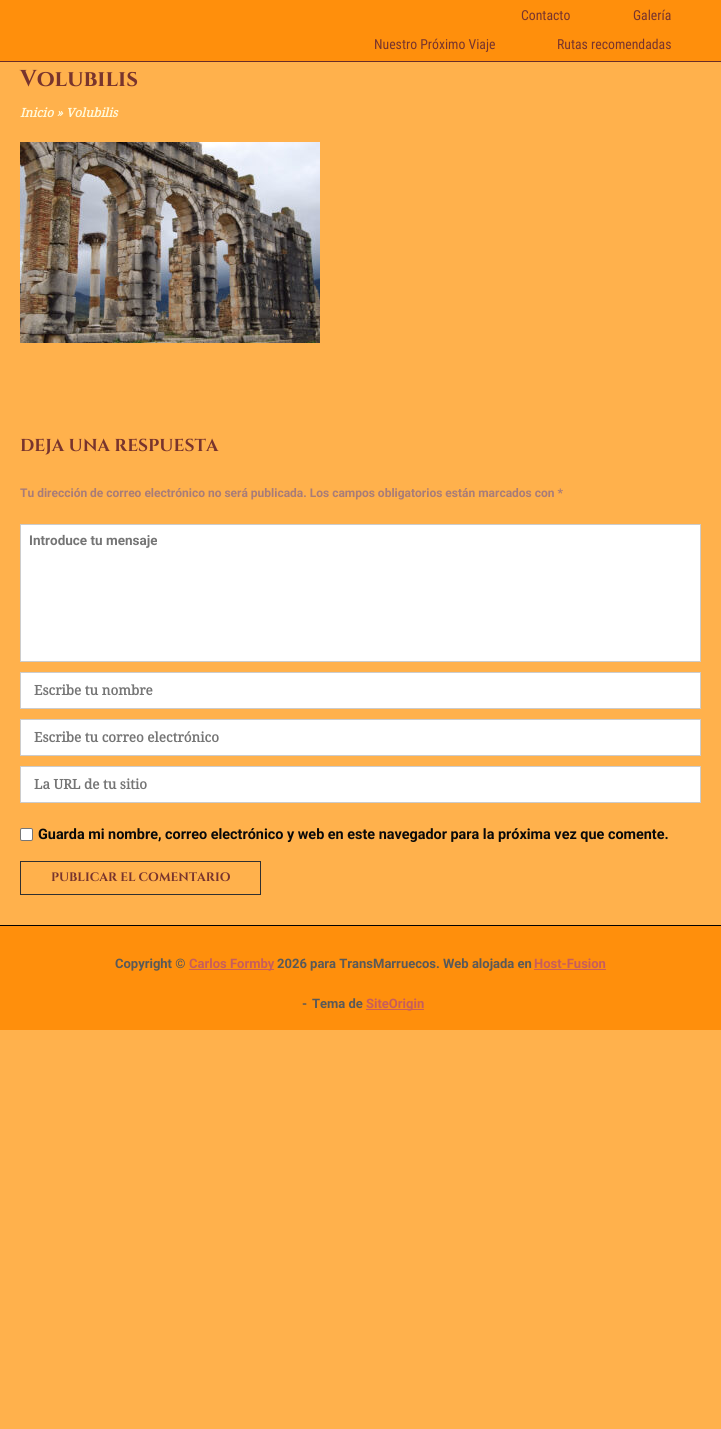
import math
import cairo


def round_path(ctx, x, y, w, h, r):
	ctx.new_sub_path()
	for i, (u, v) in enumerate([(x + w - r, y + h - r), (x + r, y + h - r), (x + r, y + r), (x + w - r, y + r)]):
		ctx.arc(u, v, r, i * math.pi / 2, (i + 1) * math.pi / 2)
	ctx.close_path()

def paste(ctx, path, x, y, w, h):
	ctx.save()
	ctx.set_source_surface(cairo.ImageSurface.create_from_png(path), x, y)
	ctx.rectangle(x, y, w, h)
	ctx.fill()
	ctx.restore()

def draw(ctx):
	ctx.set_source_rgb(1, 0.694, 0.298)
	ctx.paint()
	ctx.set_source_rgb(1, 0.561, 0.047)
	ctx.rectangle(0, 0, 721, 61)
	ctx.fill()
	ctx.set_source_rgb(0.412, 0.176, 0.157)
	ctx.rectangle(0, 61, 721, 1)
	ctx.fill()
	ctx.select_font_face('Roboto Condensed')
	ctx.set_font_size(13.75)
	ctx.set_source_rgb(0.471, 0.204, 0.176)
	for x, y, s in [
		(521, 20, 'Contacto'),
		(633, 20, 'Galería'),
		(374, 49, 'Nuestro Próximo Viaje'),
		(557, 49, 'Rutas recomendadas'),
	]:
		ctx.move_to(x, y)
		ctx.show_text(s)
	ctx.select_font_face('Cinzel', cairo.FONT_SLANT_NORMAL, cairo.FONT_WEIGHT_BOLD)
	ctx.set_font_size(23)
	ctx.move_to(20, 86)
	ctx.show_text('Volubilis')
	ctx.select_font_face('Droid Serif', cairo.FONT_SLANT_ITALIC, cairo.FONT_WEIGHT_BOLD)
	ctx.set_font_size(12.25)
	ctx.set_source_rgb(1, 0.973, 0.859)
	ctx.move_to(20, 117)
	ctx.show_text('Inicio » Volubilis')
	paste(ctx, 'media/1.png', 20, 142, 300, 201)
	ctx.select_font_face('Cinzel', cairo.FONT_SLANT_NORMAL, cairo.FONT_WEIGHT_BOLD)
	ctx.set_font_size(17.25)
	ctx.set_source_rgb(0.471, 0.204, 0.176)
	ctx.move_to(20, 451)
	ctx.show_text('DEJA UNA RESPUESTA')
	ctx.select_font_face('Roboto', cairo.FONT_SLANT_NORMAL, cairo.FONT_WEIGHT_BOLD)
	ctx.set_font_size(12)
	ctx.set_source_rgb(0.659, 0.486, 0.471)
	ctx.move_to(20, 497)
	ctx.show_text('Tu dirección de correo electrónico no será publicada. Los campos obligatorios están marcados con *')
	ctx.set_source_rgb(1, 1, 1)
	ctx.rectangle(20.5, 524.5, 680, 137)
	ctx.fill_preserve()
	ctx.set_source_rgb(0.8, 0.8, 0.8)
	ctx.set_line_width(1)
	ctx.stroke()
	ctx.set_font_size(13.5)
	ctx.set_source_rgb(0.459, 0.459, 0.459)
	ctx.move_to(29, 545)
	ctx.show_text('Introduce tu mensaje')
	ctx.set_source_rgb(1, 1, 1)
	ctx.rectangle(20.5, 672.5, 680, 36)
	ctx.fill_preserve()
	ctx.set_source_rgb(0.8, 0.8, 0.8)
	ctx.stroke()
	ctx.select_font_face('Droid Serif', cairo.FONT_SLANT_NORMAL, cairo.FONT_WEIGHT_BOLD)
	ctx.set_source_rgb(0.459, 0.459, 0.459)
	ctx.move_to(34, 695)
	ctx.show_text('Escribe tu nombre')
	ctx.set_source_rgb(1, 1, 1)
	ctx.rectangle(20.5, 719.5, 680, 36)
	ctx.fill_preserve()
	ctx.set_source_rgb(0.8, 0.8, 0.8)
	ctx.stroke()
	ctx.set_source_rgb(0.459, 0.459, 0.459)
	ctx.move_to(34, 742)
	ctx.show_text('Escribe tu correo electrónico')
	ctx.set_source_rgb(1, 1, 1)
	ctx.rectangle(20.5, 766.5, 680, 36)
	ctx.fill_preserve()
	ctx.set_source_rgb(0.8, 0.8, 0.8)
	ctx.stroke()
	ctx.set_source_rgb(0.459, 0.459, 0.459)
	ctx.move_to(34, 789)
	ctx.show_text('La URL de tu sitio')
	ctx.set_source_rgb(1, 1, 1)
	round_path(ctx, 20.5, 828.5, 12, 12, 1.5)
	ctx.fill_preserve()
	ctx.set_source_rgb(0.463, 0.463, 0.463)
	ctx.stroke()
	ctx.select_font_face('Roboto', cairo.FONT_SLANT_NORMAL, cairo.FONT_WEIGHT_BOLD)
	ctx.set_font_size(14.4)
	ctx.set_source_rgb(0.039, 0.039, 0.039)
	ctx.move_to(38, 839)
	ctx.show_text('Guarda mi nombre, correo electrónico y web en este navegador para la próxima vez que comente.')
	ctx.rectangle(20.5, 861.5, 240, 33)
	ctx.set_source_rgb(0.188, 0.188, 0.188)
	ctx.stroke()
	ctx.select_font_face('Cinzel', cairo.FONT_SLANT_NORMAL, cairo.FONT_WEIGHT_BOLD)
	ctx.set_font_size(12.25)
	ctx.set_source_rgb(0.471, 0.204, 0.176)
	ctx.move_to(51, 881)
	ctx.show_text('PUBLICAR EL COMENTARIO')
	ctx.set_source_rgb(1, 0.561, 0.047)
	ctx.rectangle(0, 926, 721, 104)
	ctx.fill()
	ctx.set_source_rgb(0, 0, 0)
	ctx.rectangle(0, 925, 721, 1)
	ctx.fill()
	ctx.select_font_face('Roboto', cairo.FONT_SLANT_NORMAL, cairo.FONT_WEIGHT_BOLD)
	ctx.set_font_size(13)
	ctx.set_source_rgb(0.349, 0.349, 0.349)
	ctx.move_to(115, 968)
	ctx.show_text('Copyright ©')
	ctx.set_source_rgb(0.78, 0.365, 0.365)
	ctx.rectangle(189, 969, 85, 1)
	ctx.fill()
	ctx.move_to(189, 968)
	ctx.show_text('Carlos Formby')
	ctx.set_source_rgb(0.349, 0.349, 0.349)
	ctx.move_to(277, 968)
	ctx.show_text('2026 para TransMarruecos. Web alojada en')
	ctx.set_source_rgb(0.78, 0.365, 0.365)
	ctx.move_to(534, 968)
	ctx.show_text('Host-Fusion')
	ctx.rectangle(534, 969, 72, 1)
	ctx.fill()
	ctx.set_source_rgb(0.349, 0.349, 0.349)
	ctx.move_to(302, 1008)
	ctx.show_text('-')
	ctx.move_to(312, 1008)
	ctx.show_text('Tema de')
	ctx.set_source_rgb(0.78, 0.365, 0.365)
	ctx.rectangle(366, 1009, 58, 1)
	ctx.fill()
	ctx.move_to(366, 1008)
	ctx.show_text('SiteOrigin')


surface = cairo.ImageSurface(cairo.FORMAT_RGB24, 721, 1429)
ctx = cairo.Context(surface)
options = cairo.FontOptions()
options.set_hint_metrics(cairo.HINT_METRICS_OFF)
options.set_hint_style(cairo.HINT_STYLE_NONE)
ctx.set_font_options(options)
ctx.set_miter_limit(4)
draw(ctx)
surface.write_to_png('image.png')
